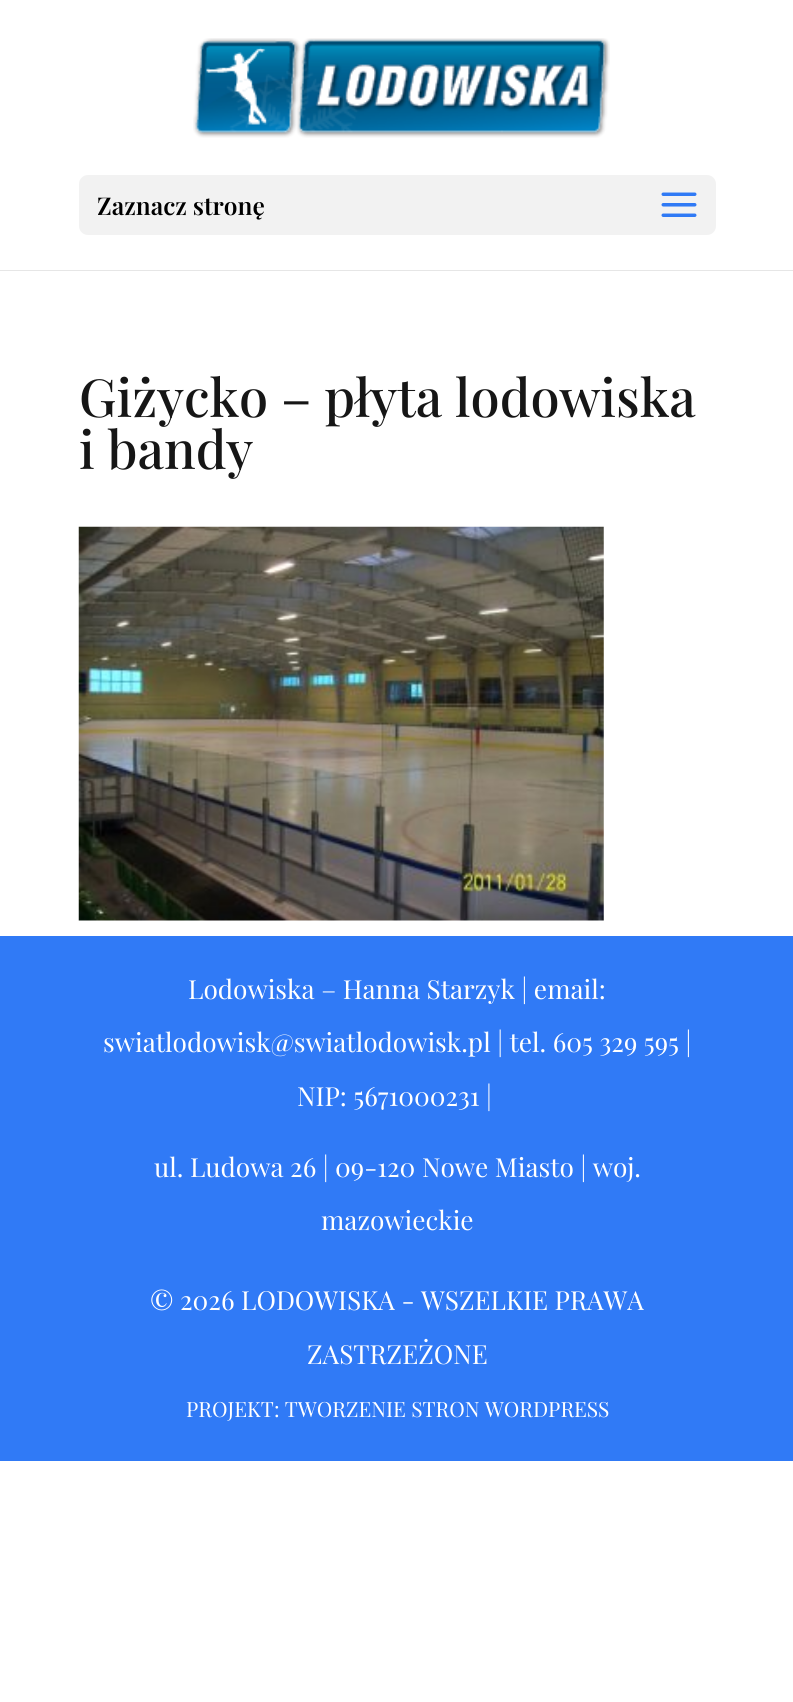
import math
import cairo


def round_path(ctx, x, y, w, h, r):
	ctx.new_sub_path()
	for i, (u, v) in enumerate([(x + w - r, y + h - r), (x + r, y + h - r), (x + r, y + r), (x + w - r, y + r)]):
		ctx.arc(u, v, r, i * math.pi / 2, (i + 1) * math.pi / 2)
	ctx.close_path()

def paste(ctx, path, x, y, w, h):
	ctx.save()
	ctx.set_source_surface(cairo.ImageSurface.create_from_png(path), x, y)
	ctx.rectangle(x, y, w, h)
	ctx.fill()
	ctx.restore()

def draw(ctx):
	ctx.set_source_rgb(1, 1, 1)
	ctx.paint()
	ctx.set_source_rgb(0.902, 0.902, 0.902)
	ctx.new_path()
	ctx.move_to(0, 270)
	ctx.line_to(0, 271)
	ctx.line_to(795, 271)
	ctx.line_to(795, 2)
	ctx.line_to(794, 2)
	ctx.line_to(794, 270)
	ctx.close_path()
	ctx.fill()
	paste(ctx, 'media/1.png', 193, 38, 417, 100)
	ctx.set_source_rgb(0.949, 0.949, 0.949)
	round_path(ctx, 79, 175, 637, 60, 9)
	ctx.fill()
	ctx.select_font_face('Playfair Display SemiBold')
	ctx.set_font_size(24.5)
	ctx.set_source_rgb(0, 0, 0)
	ctx.move_to(97, 215)
	ctx.show_text('Zaznacz stronę')
	paste(ctx, 'media/2.png', 661, 192, 36, 25)
	ctx.select_font_face('Playfair Display Medium')
	ctx.set_font_size(52.5)
	ctx.set_source_rgb(0.086, 0.086, 0.086)
	ctx.move_to(79, 417)
	ctx.show_text('Giżycko – płyta lodowiska')
	ctx.move_to(79, 469)
	ctx.show_text('i bandy')
	paste(ctx, 'media/3.png', 78, 526, 526, 395)
	ctx.set_source_rgb(0.188, 0.478, 0.961)
	ctx.rectangle(0, 936, 793, 525)
	ctx.fill()
	ctx.select_font_face('Playfair Display')
	ctx.set_font_size(26.25)
	ctx.set_source_rgb(1, 1, 1)
	for x, y, s in [
		(188, 999, 'Lodowiska – Hanna Starzyk | email:'),
		(103, 1052, 'swiatlodowisk@swiatlodowisk.pl | tel. 605 329 595 |'),
		(297, 1106, 'NIP: 5671000231 |'),
		(154, 1177, 'ul. Ludowa 26 | 09-120 Nowe Miasto | woj.'),
		(321, 1230, 'mazowieckie'),
		(150, 1310, '© 2026 LODOWISKA - WSZELKIE PRAWA'),
		(307, 1364, 'ZASTRZEŻONE'),
	]:
		ctx.move_to(x, y)
		ctx.show_text(s)
	ctx.set_font_size(21)
	ctx.move_to(186, 1417)
	ctx.show_text('PROJEKT: TWORZENIE STRON WORDPRESS')


surface = cairo.ImageSurface(cairo.FORMAT_RGB24, 793, 1702)
ctx = cairo.Context(surface)
options = cairo.FontOptions()
options.set_hint_metrics(cairo.HINT_METRICS_OFF)
options.set_hint_style(cairo.HINT_STYLE_NONE)
ctx.set_font_options(options)
ctx.set_miter_limit(4)
draw(ctx)
surface.write_to_png('image.png')
